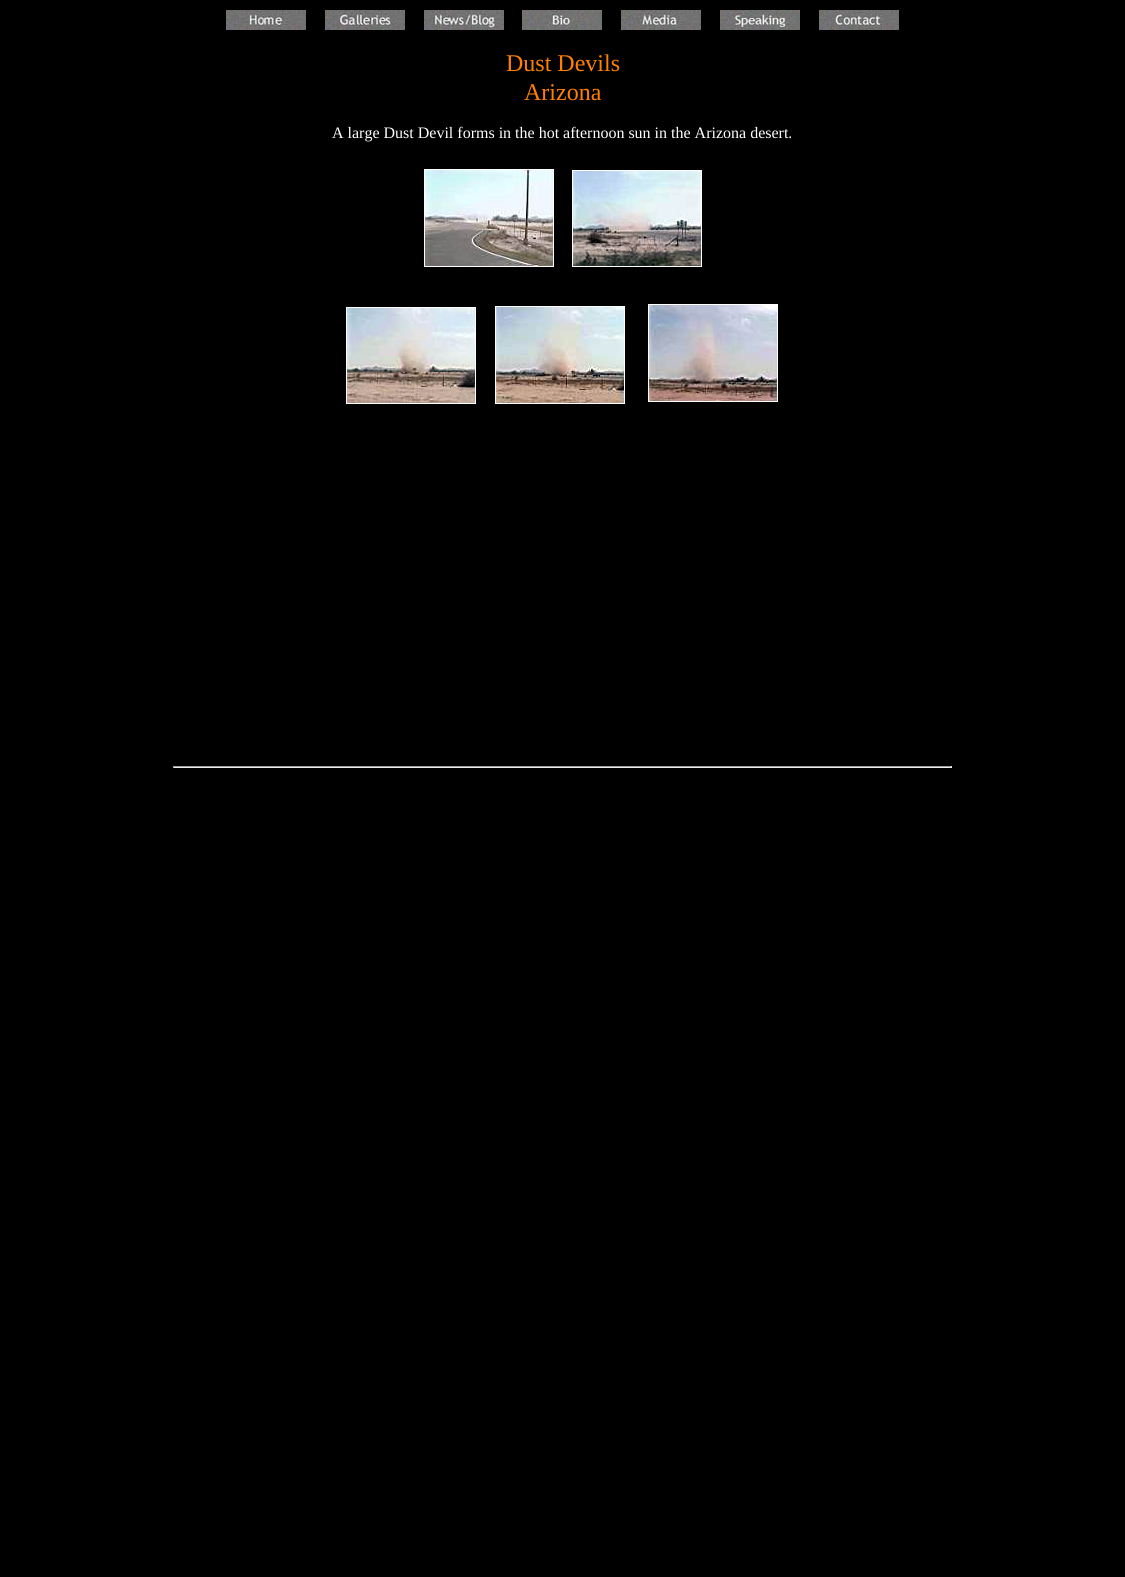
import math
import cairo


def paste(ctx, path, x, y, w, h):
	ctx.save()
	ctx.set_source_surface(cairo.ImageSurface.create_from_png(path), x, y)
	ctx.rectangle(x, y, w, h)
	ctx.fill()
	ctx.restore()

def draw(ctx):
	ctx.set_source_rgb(0, 0, 0)
	ctx.paint()
	paste(ctx, 'media/1.png', 226, 10, 80, 20)
	paste(ctx, 'media/2.png', 325, 10, 80, 20)
	paste(ctx, 'media/3.png', 424, 10, 80, 20)
	paste(ctx, 'media/4.png', 522, 10, 80, 20)
	paste(ctx, 'media/5.png', 621, 10, 80, 20)
	paste(ctx, 'media/6.png', 720, 10, 80, 20)
	paste(ctx, 'media/7.png', 819, 10, 80, 20)
	ctx.select_font_face('Liberation Serif')
	ctx.set_font_size(24)
	ctx.set_source_rgb(1, 0.502, 0)
	ctx.move_to(506, 71)
	ctx.show_text('Dust Devils')
	ctx.move_to(524, 100)
	ctx.show_text('Arizona')
	ctx.set_font_size(16)
	ctx.set_source_rgb(1, 1, 1)
	ctx.move_to(332, 138)
	ctx.show_text('A large Dust Devil forms in the hot afternoon sun in the Arizona desert.')
	ctx.rectangle(424.5, 169.5, 129, 97)
	ctx.set_line_width(1)
	ctx.stroke()
	paste(ctx, 'media/8.png', 425, 170, 128, 96)
	ctx.rectangle(572.5, 170.5, 129, 96)
	ctx.stroke()
	paste(ctx, 'media/9.png', 573, 171, 128, 95)
	ctx.rectangle(346.5, 307.5, 129, 96)
	ctx.stroke()
	paste(ctx, 'media/10.png', 347, 308, 128, 95)
	ctx.rectangle(495.5, 306.5, 129, 97)
	ctx.stroke()
	paste(ctx, 'media/11.png', 496, 307, 128, 96)
	ctx.rectangle(648.5, 304.5, 129, 97)
	ctx.stroke()
	paste(ctx, 'media/12.png', 649, 305, 128, 96)
	ctx.set_source_rgb(0.624, 0.624, 0.624)
	ctx.rectangle(173, 766, 779, 1)
	ctx.fill()
	ctx.set_source_rgb(0.933, 0.933, 0.933)
	ctx.rectangle(951, 766, 1, 2)
	ctx.rectangle(173, 767, 779, 1)
	ctx.fill()
	ctx.set_source_rgb(0.624, 0.624, 0.624)
	ctx.rectangle(173, 766, 1, 2)
	ctx.fill()


surface = cairo.ImageSurface(cairo.FORMAT_RGB24, 1125, 1577)
ctx = cairo.Context(surface)
options = cairo.FontOptions()
options.set_hint_metrics(cairo.HINT_METRICS_OFF)
options.set_hint_style(cairo.HINT_STYLE_NONE)
ctx.set_font_options(options)
ctx.set_miter_limit(4)
draw(ctx)
surface.write_to_png('image.png')
